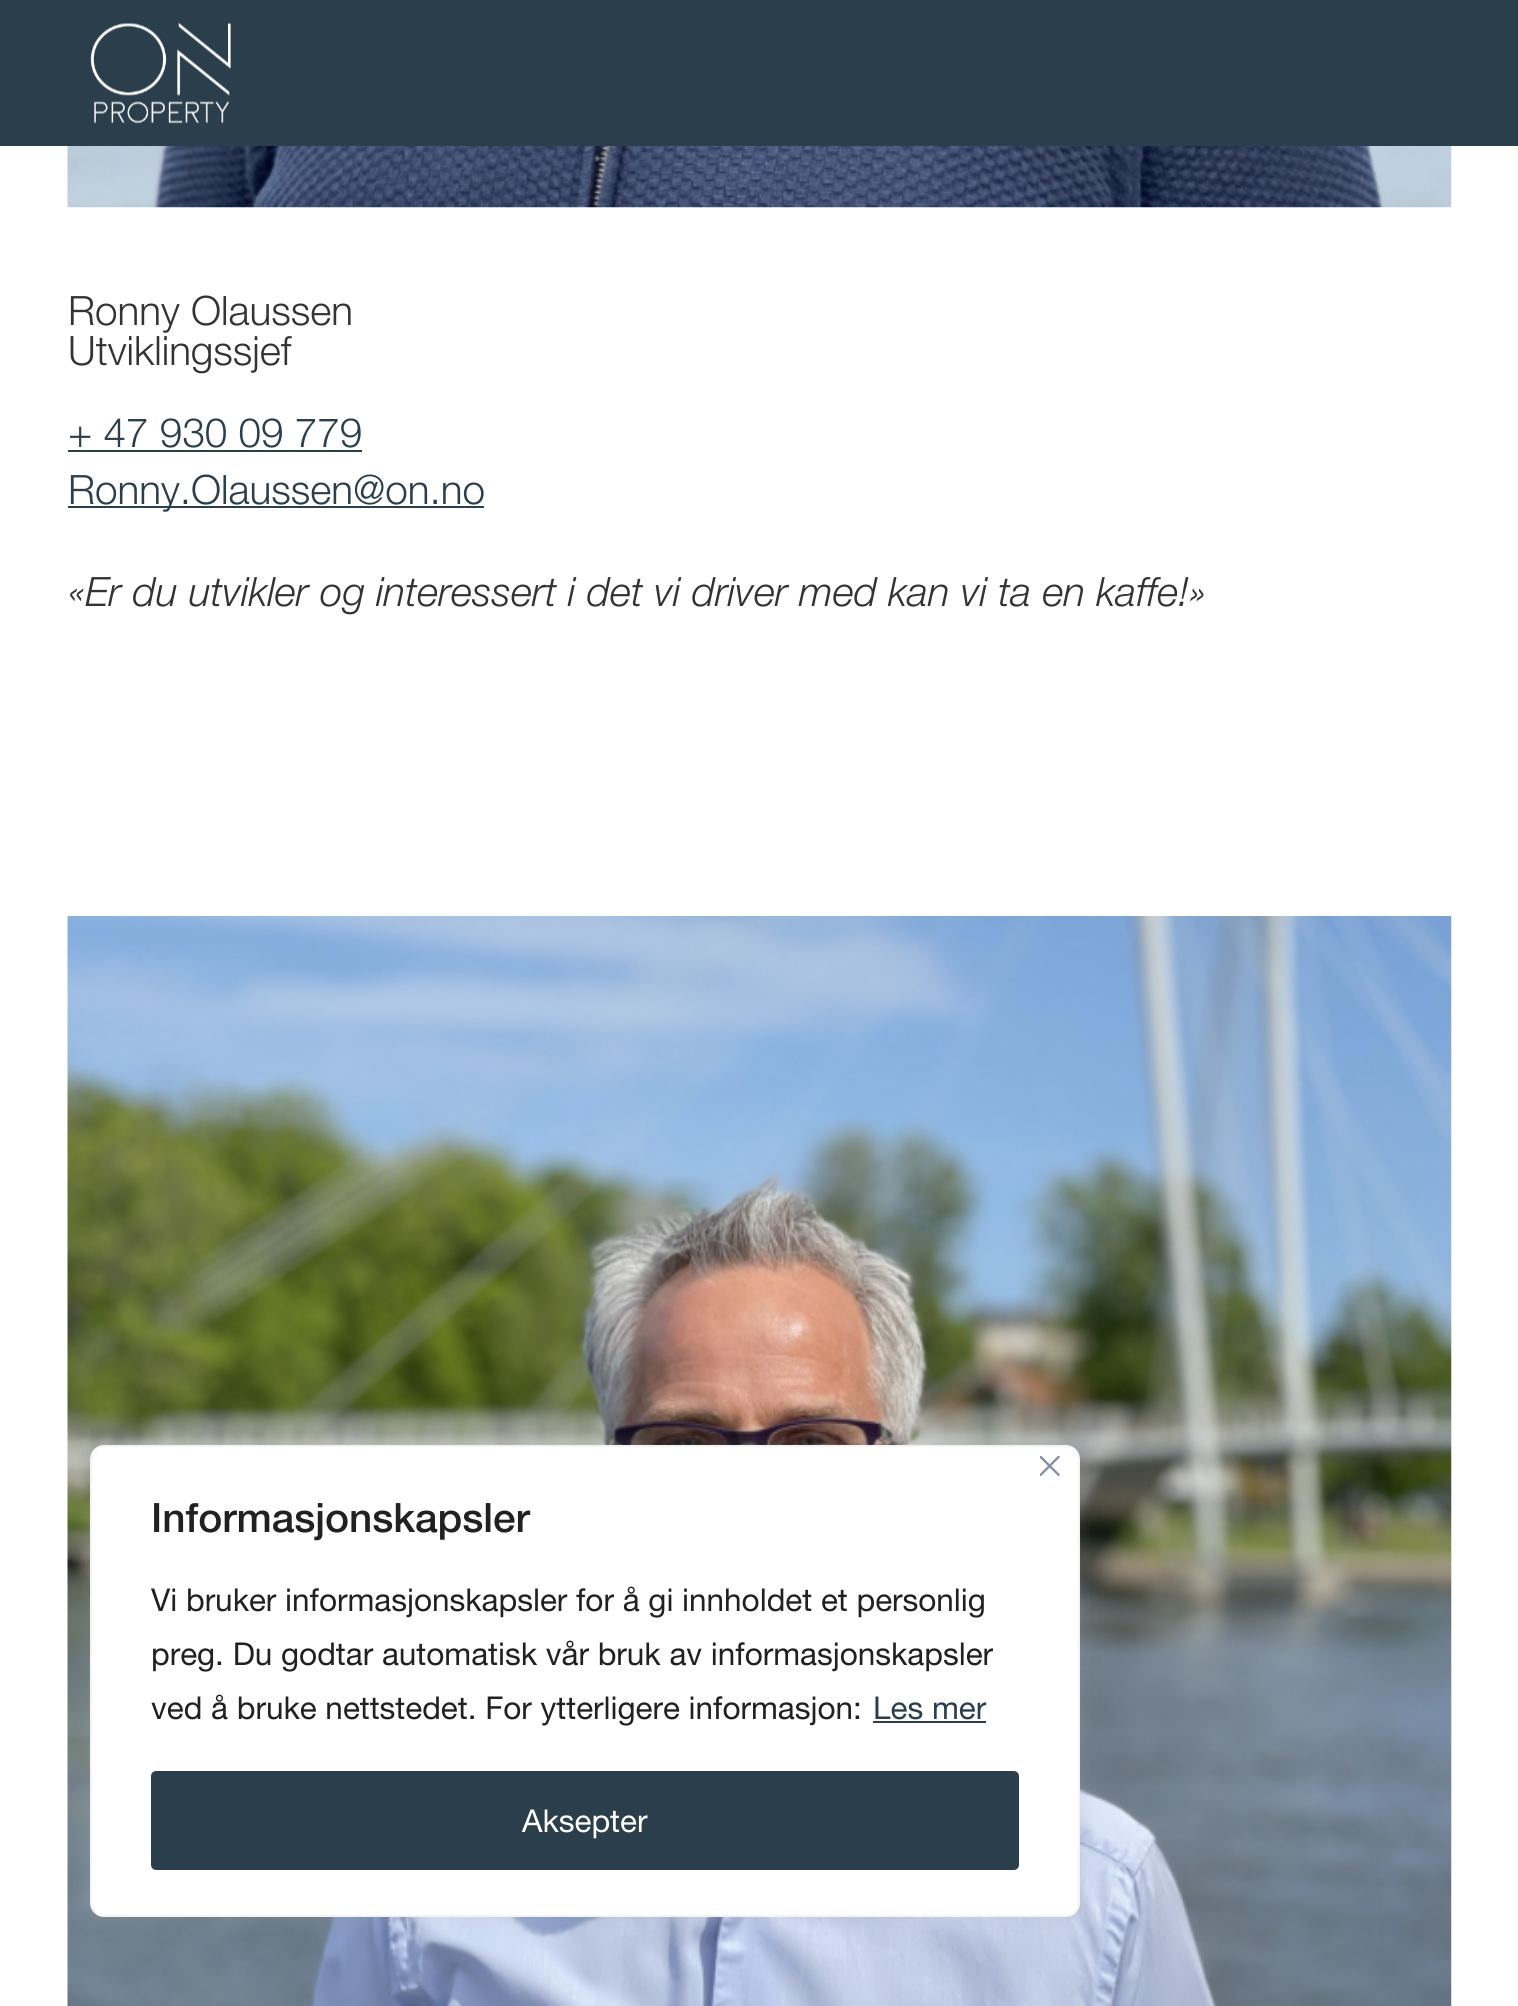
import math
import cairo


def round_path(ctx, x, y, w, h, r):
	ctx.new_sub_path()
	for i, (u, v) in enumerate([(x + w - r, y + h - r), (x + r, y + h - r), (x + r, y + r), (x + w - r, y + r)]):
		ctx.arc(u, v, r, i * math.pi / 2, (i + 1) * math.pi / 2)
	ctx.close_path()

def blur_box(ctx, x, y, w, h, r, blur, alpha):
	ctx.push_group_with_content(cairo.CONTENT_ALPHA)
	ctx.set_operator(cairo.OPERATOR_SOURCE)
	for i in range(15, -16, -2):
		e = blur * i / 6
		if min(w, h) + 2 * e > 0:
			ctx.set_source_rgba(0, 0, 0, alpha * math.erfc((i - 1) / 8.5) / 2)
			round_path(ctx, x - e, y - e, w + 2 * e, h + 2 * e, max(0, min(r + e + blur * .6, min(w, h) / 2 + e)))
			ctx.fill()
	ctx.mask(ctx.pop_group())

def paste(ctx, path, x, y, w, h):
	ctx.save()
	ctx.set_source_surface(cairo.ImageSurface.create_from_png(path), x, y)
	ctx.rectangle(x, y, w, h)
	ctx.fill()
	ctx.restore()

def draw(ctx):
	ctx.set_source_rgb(1, 1, 1)
	ctx.paint()
	ctx.set_source_rgb(0.169, 0.243, 0.294)
	ctx.rectangle(0, 0, 1518, 146)
	ctx.fill()
	paste(ctx, 'media/1.png', 90, 22, 141, 102)
	paste(ctx, 'media/2.png', 67, 146, 1385, 62)
	ctx.select_font_face('Helvetica Neue Light')
	ctx.set_font_size(40.5)
	ctx.set_source_rgb(0.2, 0.2, 0.2)
	ctx.move_to(68, 325)
	ctx.show_text('Ronny Olaussen')
	ctx.move_to(68, 365)
	ctx.show_text('Utviklingssjef')
	ctx.set_source_rgb(0.169, 0.243, 0.294)
	ctx.move_to(68, 447)
	ctx.show_text('+ 47 930 09 779')
	ctx.rectangle(68, 450, 294, 2)
	ctx.fill()
	ctx.rectangle(68, 506, 416, 2)
	ctx.fill()
	ctx.move_to(68, 504)
	ctx.show_text('Ronny.Olaussen@on.no')
	ctx.select_font_face('Helvetica Neue Light', cairo.FONT_SLANT_ITALIC)
	ctx.set_source_rgb(0.2, 0.2, 0.2)
	ctx.move_to(68, 606)
	ctx.show_text('«Er du utvikler og interessert i det vi driver med kan vi ta en kaffe!»')
	paste(ctx, 'media/3.png', 67, 916, 1385, 1090)
	ctx.set_source_rgb(0.675, 0.671, 0.671)
	blur_box(ctx, 90, 1442, 990, 473, 14, 11, 0.3)
	ctx.set_source_rgb(1, 1, 1)
	round_path(ctx, 91, 1446, 988, 470, 13)
	ctx.fill_preserve()
	ctx.set_source_rgb(0.957, 0.957, 0.957)
	ctx.stroke()
	paste(ctx, 'media/4.png', 1040, 1456, 20, 20)
	ctx.select_font_face('Helvetica Neue Medium')
	ctx.set_source_rgb(0.129, 0.129, 0.129)
	ctx.move_to(151, 1532)
	ctx.show_text('Informasjonskapsler')
	ctx.select_font_face('Helvetica Neue')
	ctx.set_font_size(31.5)
	for x, y, s in [
		(151, 1611, 'Vi bruker informasjonskapsler for å gi innholdet et personlig'),
		(151, 1665, 'preg. Du godtar automatisk vår bruk av informasjonskapsler'),
		(151, 1719, 'ved å bruke nettstedet. For ytterligere informasjon:'),
	]:
		ctx.move_to(x, y)
		ctx.show_text(s)
	ctx.set_source_rgb(0.169, 0.243, 0.294)
	ctx.move_to(873, 1719)
	ctx.show_text('Les mer')
	ctx.rectangle(873, 1721, 113, 2)
	ctx.fill()
	round_path(ctx, 153.5, 1773.5, 863, 94, 2.5)
	ctx.fill_preserve()
	ctx.set_line_width(5)
	ctx.stroke()
	ctx.set_source_rgb(1, 1, 1)
	ctx.move_to(522, 1832)
	ctx.show_text('Aksepter')


surface = cairo.ImageSurface(cairo.FORMAT_RGB24, 1518, 2006)
ctx = cairo.Context(surface)
options = cairo.FontOptions()
options.set_hint_metrics(cairo.HINT_METRICS_OFF)
options.set_hint_style(cairo.HINT_STYLE_NONE)
ctx.set_font_options(options)
ctx.set_miter_limit(4)
draw(ctx)
surface.write_to_png('image.png')
